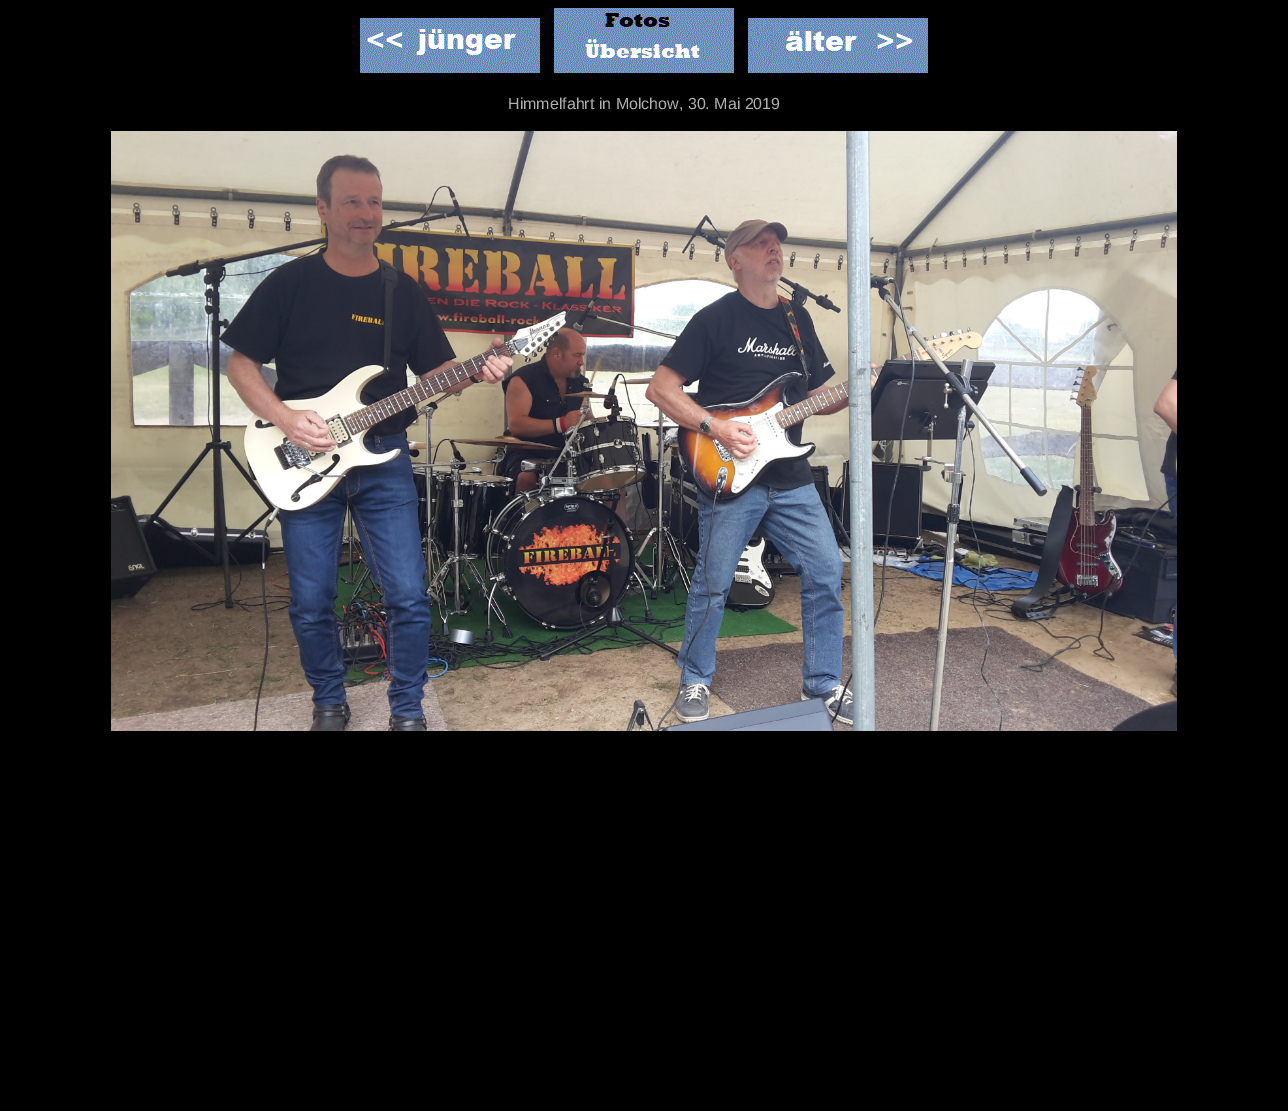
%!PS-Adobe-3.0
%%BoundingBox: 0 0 1288 1111
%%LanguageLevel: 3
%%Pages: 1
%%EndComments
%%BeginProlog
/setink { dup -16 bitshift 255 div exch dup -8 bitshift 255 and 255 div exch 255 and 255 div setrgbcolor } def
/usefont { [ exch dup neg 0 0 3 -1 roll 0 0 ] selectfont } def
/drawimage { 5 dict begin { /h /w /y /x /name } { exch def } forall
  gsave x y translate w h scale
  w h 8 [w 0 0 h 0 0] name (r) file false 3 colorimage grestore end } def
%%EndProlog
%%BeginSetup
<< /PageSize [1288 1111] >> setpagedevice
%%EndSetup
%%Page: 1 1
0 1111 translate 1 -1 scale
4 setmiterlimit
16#000000 setink
0 0 1288 1111 rectfill
(img1.raw) 360 18 180 55 drawimage
(img2.raw) 554 8 180 65 drawimage
(img3.raw) 748 18 180 55 drawimage
/LiberationSans-Regular 16 usefont
16#AFAFAF setink
508 109 moveto (Himmelfahrt in Molchow, 30. Mai 2019) show
(img4.raw) 111 131 1066 600 drawimage
showpage
%%EOF
